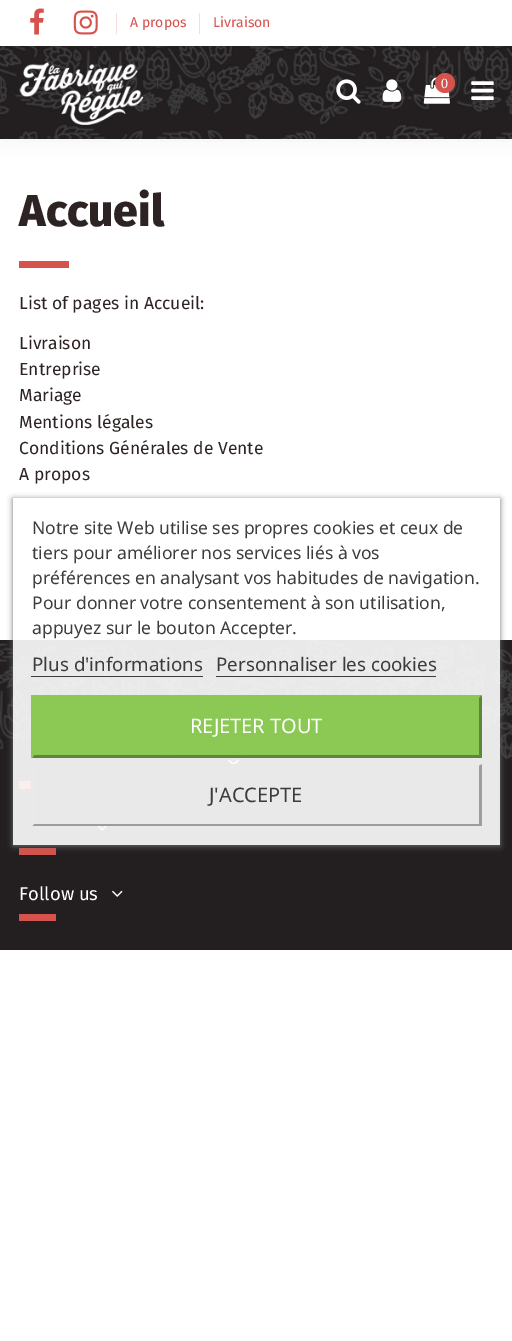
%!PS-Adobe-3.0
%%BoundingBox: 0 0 512 1341
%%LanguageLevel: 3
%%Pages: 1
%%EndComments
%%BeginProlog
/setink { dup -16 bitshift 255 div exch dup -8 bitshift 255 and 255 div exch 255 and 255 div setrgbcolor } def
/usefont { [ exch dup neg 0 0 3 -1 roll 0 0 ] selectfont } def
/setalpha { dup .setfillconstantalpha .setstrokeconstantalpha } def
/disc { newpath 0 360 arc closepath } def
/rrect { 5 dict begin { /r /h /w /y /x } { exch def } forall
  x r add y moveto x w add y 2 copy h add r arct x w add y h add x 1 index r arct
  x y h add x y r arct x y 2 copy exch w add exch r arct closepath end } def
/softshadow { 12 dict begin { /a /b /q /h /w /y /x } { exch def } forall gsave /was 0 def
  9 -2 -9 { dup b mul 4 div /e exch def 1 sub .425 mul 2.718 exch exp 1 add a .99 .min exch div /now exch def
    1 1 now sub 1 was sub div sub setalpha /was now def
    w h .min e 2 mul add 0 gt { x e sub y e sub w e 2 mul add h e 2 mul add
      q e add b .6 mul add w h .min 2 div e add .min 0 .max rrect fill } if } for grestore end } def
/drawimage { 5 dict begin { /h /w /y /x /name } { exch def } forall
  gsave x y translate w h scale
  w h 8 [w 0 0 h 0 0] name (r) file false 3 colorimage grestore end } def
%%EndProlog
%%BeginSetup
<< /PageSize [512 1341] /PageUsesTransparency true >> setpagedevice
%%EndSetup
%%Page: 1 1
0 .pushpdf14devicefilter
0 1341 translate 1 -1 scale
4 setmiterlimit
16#FFFFFF setink
0 0 512 1341 rectfill
16#000000 setink
0 0 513 139 0 12.5 0.05 softshadow
16#FFFFFF setink
0 0 512 46 rectfill
(img1.raw) 30 8 14 27 drawimage
(img2.raw) 73 10 25 25 drawimage
16#F7DCDB setink
116 13 1 21 rectfill
/FiraSans-Regular 14 usefont
16#D6524D setink
130 27 moveto (A propos) show
16#F7DCDB setink
199 13 1 21 rectfill
16#D6524D setink
213 27 moveto (Livraison) show
(img3.raw) 0 46 512 93 drawimage
(img4.raw) 19 62 125 63 drawimage
(img5.raw) 336 79 25 25 drawimage
(img6.raw) 382 79 20 23 drawimage
(img7.raw) 423 77 27 27 drawimage
445 83 10 disc fill
/LiberationSerif-Regular 14 usefont
16#FFFFFF setink
441 88 moveto (0) show
(img8.raw) 471 81 23 19 drawimage
/FiraSans-ExtraBold 44.5 usefont
16#2E2323 setink
19 226 moveto (Accueil) show
16#D6524D setink
19 261 50 7 rectfill
/FiraSans-Regular 17.5 usefont
16#2E2323 setink
[
    [(List of pages in Accueil:) 19 309]
    [(Livraison) 19 349]
    [(Entreprise) 19 375]
    [(Mariage) 19 401]
    [(Mentions légales) 19 428]
    [(Conditions Générales de Vente) 19 454]
    [(A propos) 19 480]
] { aload pop moveto show } forall
16#231F20 setink
0 764 512 186 rectfill
(img9.raw) 0 640 512 124 drawimage
(img10.raw) 228 759 11 5 drawimage
16#D6524D setink
19 781 12 8 rectfill
(img11.raw) 97 826 10 5 drawimage
19 848 37 7 rectfill
gsave
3 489 moveto 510 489 lineto 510 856 lineto 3 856 lineto closepath 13 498 moveto 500 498 lineto 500 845 lineto 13 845 lineto closepath eoclip newpath
16#707070 setink
13 499 487 347 0 3 1 softshadow
grestore
0.9 setalpha
16#FFFFFF setink
13 640 487 205 rectfill
/NotoSans-Regular 17.5 usefont
1 setalpha
16#3C3C3C setink
[
    [(Notre site Web utilise ses propres cookies et ceux de) 32 534]
    [(tiers pour améliorer nos services liés à vos) 32 559]
    [(préférences en analysant vos habitudes de navigation.) 32 584]
    [(Pour donner votre consentement à son utilisation,) 32 609]
    [(appuyez sur le bouton Accepter.) 32 634]
] { aload pop moveto show } forall
/NotoSans-Regular 18.75 usefont
32 671 moveto (Plus d'informations) show
31 676 172 1 rectfill
216 671 moveto (Personnaliser les cookies) show
216 676 220 1 rectfill
16#8BC954 setink
31 695 450 63 rectfill
32 695 moveto 482 695 lineto 479 698 lineto 34 698 lineto closepath fill
16#5D8638 setink
482 695 moveto 482 758 lineto 479 755 lineto 479 698 lineto closepath fill
482 758 moveto 32 758 lineto 34 755 lineto 479 755 lineto closepath fill
16#8BC954 setink
32 758 moveto 32 695 lineto 34 698 lineto 34 755 lineto closepath fill
/NotoSans-Regular 20 usefont
16#FFFFFF setink
190 733 moveto (REJETER TOUT) show
16#9C9C9C setink
482 764 moveto 482 826 lineto 479 824 lineto 479 766 lineto closepath fill
482 826 moveto 32 826 lineto 34 824 lineto 479 824 lineto closepath fill
16#EAEAEA setink
32 826 moveto 32 764 lineto 34 766 lineto 34 824 lineto closepath fill
16#3C3C3C setink
209 802 moveto (J'ACCEPTE) show
/FiraSans-Regular 18.5 usefont
16#FFFFFF setink
19 900 moveto (Follow us) show
(img12.raw) 112 890 11 7 drawimage
16#D6524D setink
19 914 37 7 rectfill
.poppdf14devicefilter showpage
%%EOF
